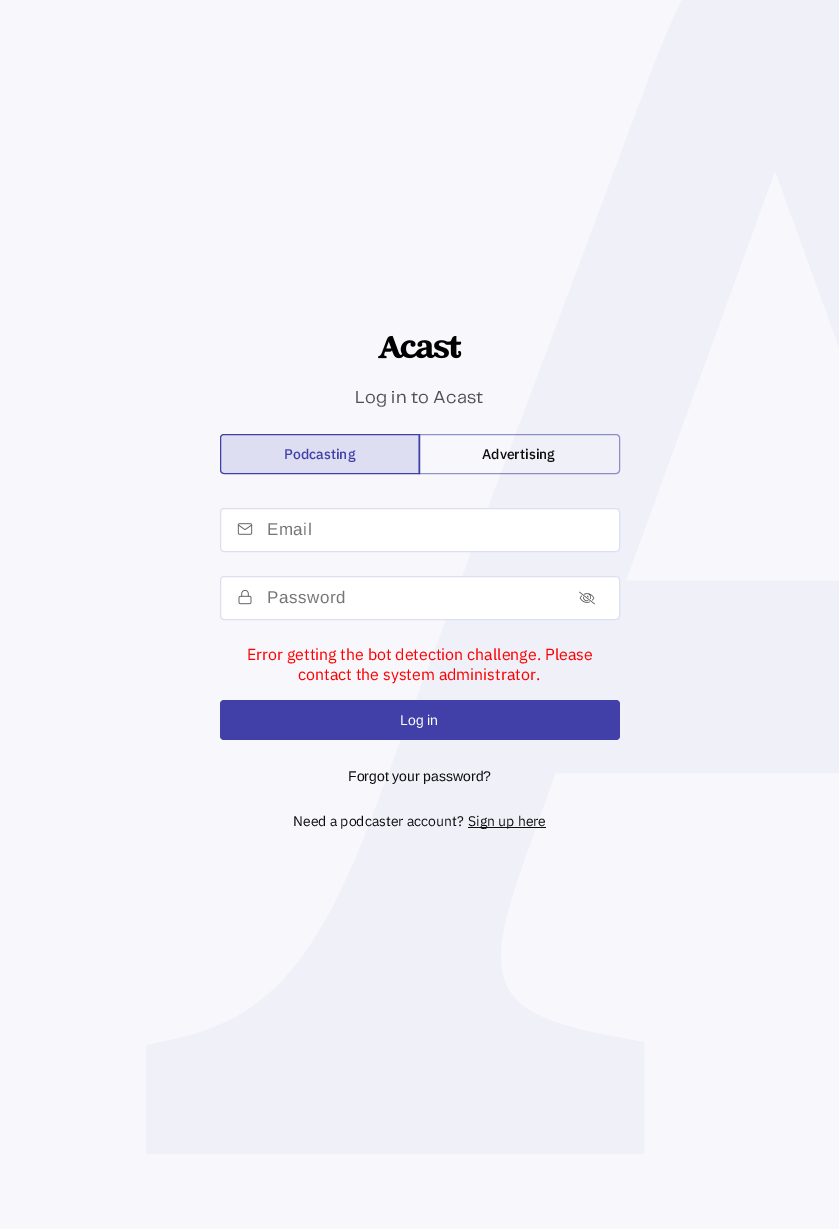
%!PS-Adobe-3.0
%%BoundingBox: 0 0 839 1229
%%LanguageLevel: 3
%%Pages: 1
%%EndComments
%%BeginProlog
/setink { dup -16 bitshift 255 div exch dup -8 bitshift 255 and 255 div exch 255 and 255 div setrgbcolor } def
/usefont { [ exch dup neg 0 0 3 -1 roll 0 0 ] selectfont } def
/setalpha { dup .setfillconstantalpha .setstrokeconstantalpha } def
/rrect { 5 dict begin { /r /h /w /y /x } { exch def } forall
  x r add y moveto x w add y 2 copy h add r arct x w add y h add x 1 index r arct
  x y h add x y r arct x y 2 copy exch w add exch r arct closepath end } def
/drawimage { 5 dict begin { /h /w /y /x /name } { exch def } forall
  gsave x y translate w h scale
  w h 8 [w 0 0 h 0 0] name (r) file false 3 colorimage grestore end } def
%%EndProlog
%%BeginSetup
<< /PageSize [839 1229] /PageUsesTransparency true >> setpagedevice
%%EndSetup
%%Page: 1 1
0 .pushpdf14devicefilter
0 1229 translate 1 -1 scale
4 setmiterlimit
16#F8F8FC setink
0 0 839 1229 rectfill
(img1.raw) 146 0 693 1154 drawimage
(img2.raw) 378 335 84 24 drawimage
/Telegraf-Regular 18 usefont
16#505050 setink
355 403 moveto 0.25 0 (Log in to Acast) ashow
16#DEDEF2 setink
224 434.5 moveto 419.5 434.5 lineto 419.5 473.5 lineto 224 473.5 lineto 222 473.5 220.5 472 220.5 470 curveto 220.5 438 lineto 220.5 436 222 434.5 224 434.5 curveto closepath gsave fill grestore
16#4040A8 setink
stroke
/IBMPlexSans-Medium 14 usefont
284 459 moveto (Podcasting) show
0.56 setalpha
418.5 434.5 moveto 616 434.5 lineto 618 434.5 619.5 436 619.5 438 curveto 619.5 470 lineto 619.5 472 618 473.5 616 473.5 curveto 418.5 473.5 lineto closepath stroke
1 setalpha
16#0D0D0D setink
482 459 moveto (Advertising) show
16#FFFFFF setink
220.5 508.5 399 43 3.5 rrect gsave fill grestore
16#DEDEF2 setink
stroke
(img3.raw) 237 523 16 12 drawimage
/LiberationSans-Regular 17 usefont
16#757575 setink
267 535 moveto 0.5 0 (Email) ashow
16#FFFFFF setink
220.5 576.5 399 43 3.5 rrect gsave fill grestore
16#DEDEF2 setink
stroke
(img4.raw) 238 589 14 16 drawimage
16#757575 setink
267 603 moveto 0.5 0 (Password) ashow
(img5.raw) 579 591 16 14 drawimage
/IBMPlexSans-Regular 16 usefont
16#FF0000 setink
247 660 moveto (Error getting the bot detection challenge. Please) show
298 680 moveto (contact the system administrator.) show
16#4040A8 setink
220 700 400 40 4 rrect fill
/LiberationSans-Regular 14 usefont
16#FFFFFF setink
400 725 moveto (Log in) show
16#0D0D0D setink
348 781 moveto (Forgot your password?) show
/IBMPlexSans-Regular 14 usefont
293 826 moveto (Need a podcaster account?) show
468 827 78 1 rectfill
468 826 moveto (Sign up here) show
.poppdf14devicefilter showpage
%%EOF
